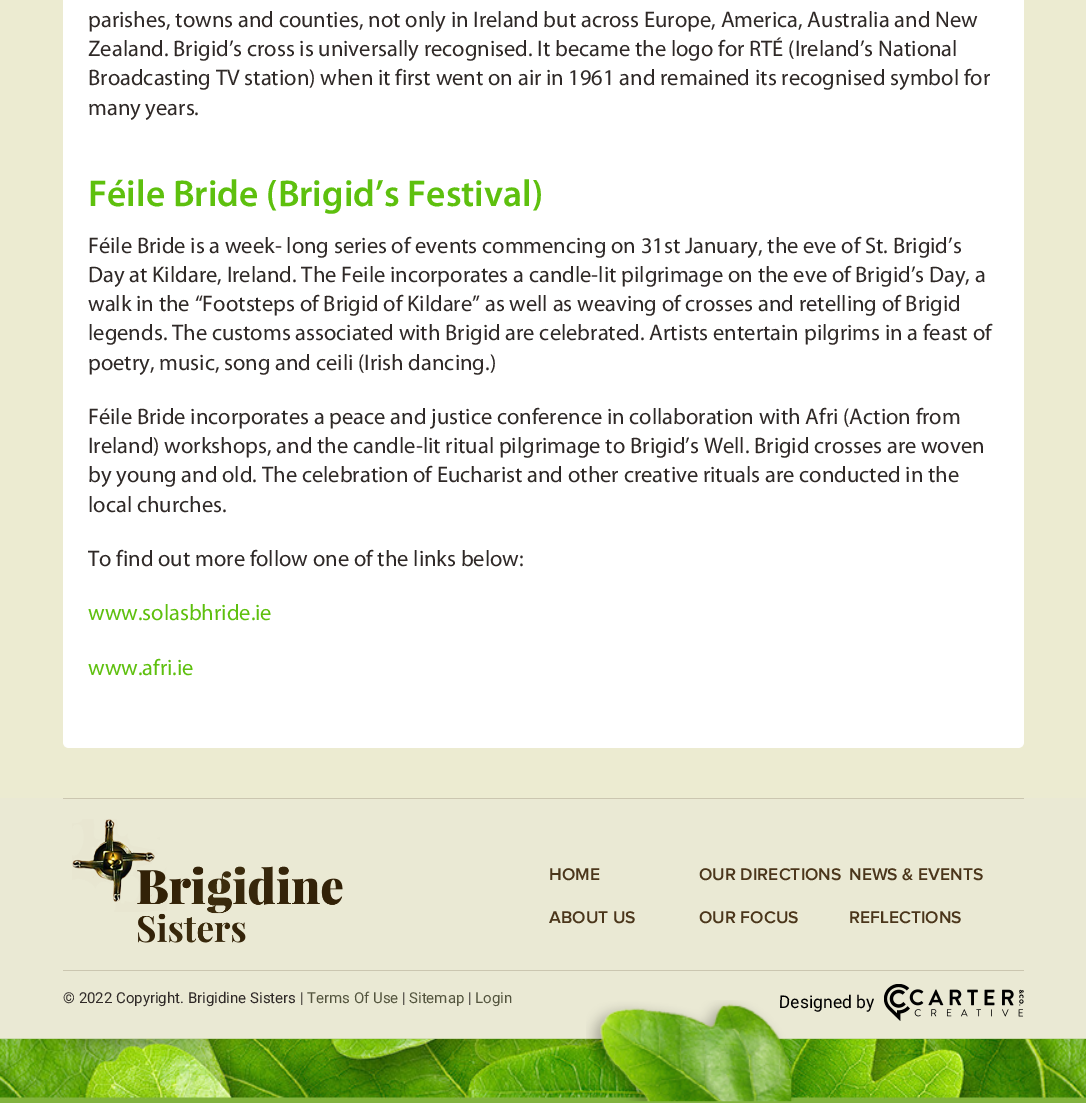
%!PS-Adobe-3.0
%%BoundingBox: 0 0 1086 1103
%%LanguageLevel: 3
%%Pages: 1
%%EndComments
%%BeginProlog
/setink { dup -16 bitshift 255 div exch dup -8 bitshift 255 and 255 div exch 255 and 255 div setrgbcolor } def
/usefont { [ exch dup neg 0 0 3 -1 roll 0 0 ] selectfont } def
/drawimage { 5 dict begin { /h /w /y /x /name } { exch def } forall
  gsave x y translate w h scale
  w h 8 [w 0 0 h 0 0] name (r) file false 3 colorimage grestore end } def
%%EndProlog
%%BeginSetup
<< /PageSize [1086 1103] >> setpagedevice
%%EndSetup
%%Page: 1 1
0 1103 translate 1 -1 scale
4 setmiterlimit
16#ECEBD1 setink
0 0 1086 1103 rectfill
16#FFFFFF setink
63 -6 moveto 1024 -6 lineto 1024 742 lineto 1024 745.5 1021.5 748 1018 748 curveto 69 748 lineto 65.5 748 63 745.5 63 742 curveto closepath fill
/Myriad-Regular 22.5 usefont
16#2F2927 setink
[
    [(parishes, towns and counties, not only in Ireland but across Europe, America, Australia and New) 88 27]
    [(Zealand. Brigid’s cross is universally recognised. It became the logo for RTÉ \(Ireland’s National) 88 56]
    [(Broadcasting TV station\) when it first went on air in 1961 and remained its recognised symbol for) 88 85]
    [(many years.) 88 115]
] { aload pop moveto show } forall
/Myriad-SemiBold 37.5 usefont
16#5EC00E setink
88 206 moveto (Féile Bride \(Brigid’s Festival\)) show
/Myriad-Regular 22.5 usefont
16#2F2927 setink
[
    [(Féile Bride is a week- long series of events commencing on 31st January, the eve of St. Brigid’s) 88 253]
    [(Day at Kildare, Ireland. The Feile incorporates a candle-lit pilgrimage on the eve of Brigid’s Day, a) 88 282]
    [(walk in the “Footsteps of Brigid of Kildare” as well as weaving of crosses and retelling of Brigid) 88 311]
    [(legends. The customs associated with Brigid are celebrated. Artists entertain pilgrims in a feast of) 88 340]
    [(poetry, music, song and ceili \(Irish dancing.\)) 88 370]
    [(Féile Bride incorporates a peace and justice conference in collaboration with Afri \(Action from) 88 424]
    [(Ireland\) workshops, and the candle-lit ritual pilgrimage to Brigid’s Well. Brigid crosses are woven) 88 453]
    [(by young and old. The celebration of Eucharist and other creative rituals are conducted in the) 88 482]
    [(local churches.) 88 512]
    [(To find out more follow one of the links below:) 88 566]
] { aload pop moveto show } forall
16#5EC00E setink
88 620 moveto (www.solasbhride.ie) show
88 675 moveto (www.afri.ie) show
[
    [0 798 1086 241 16#EAE9D4]
    [63 798 961 1 16#CBC6B0]
    [63 970 961 1 16#CBC6B0]
] { aload pop setink rectfill } forall
(img1.raw) 72 819 271 124 drawimage
/ProximaNova-SemiBold 17.5 usefont
16#4B361B setink
[
    [(HOME) 549 880]
    [(OUR DIRECTIONS) 699 880]
    [(NEWS & EVENTS) 849 880]
    [(ABOUT US) 549 923]
    [(OUR FOCUS) 699 923]
    [(REFLECTIONS) 849 923]
] { aload pop moveto show } forall
/Roboto-Regular 15 usefont
16#2F2927 setink
63 1003 moveto (© 2022 Copyright. Brigidine Sisters |) show
16#54553E setink
307 1003 moveto (Terms Of Use) show
16#2F2927 setink
402 1003 moveto (|) show
16#54553E setink
409 1003 moveto (Sitemap) show
16#2F2927 setink
468 1003 moveto (|) show
16#54553E setink
475 1003 moveto (Login) show
/Roboto-Regular 17.5 usefont
16#000000 setink
779 1008 moveto (Designed by) show
(img2.raw) 884 984 140 37 drawimage
(img3.raw) 0 1038 1086 63 drawimage
16#81B33D setink
0 1101 1086 2 rectfill
(img4.raw) 586 1000 208 102 drawimage
showpage
%%EOF
